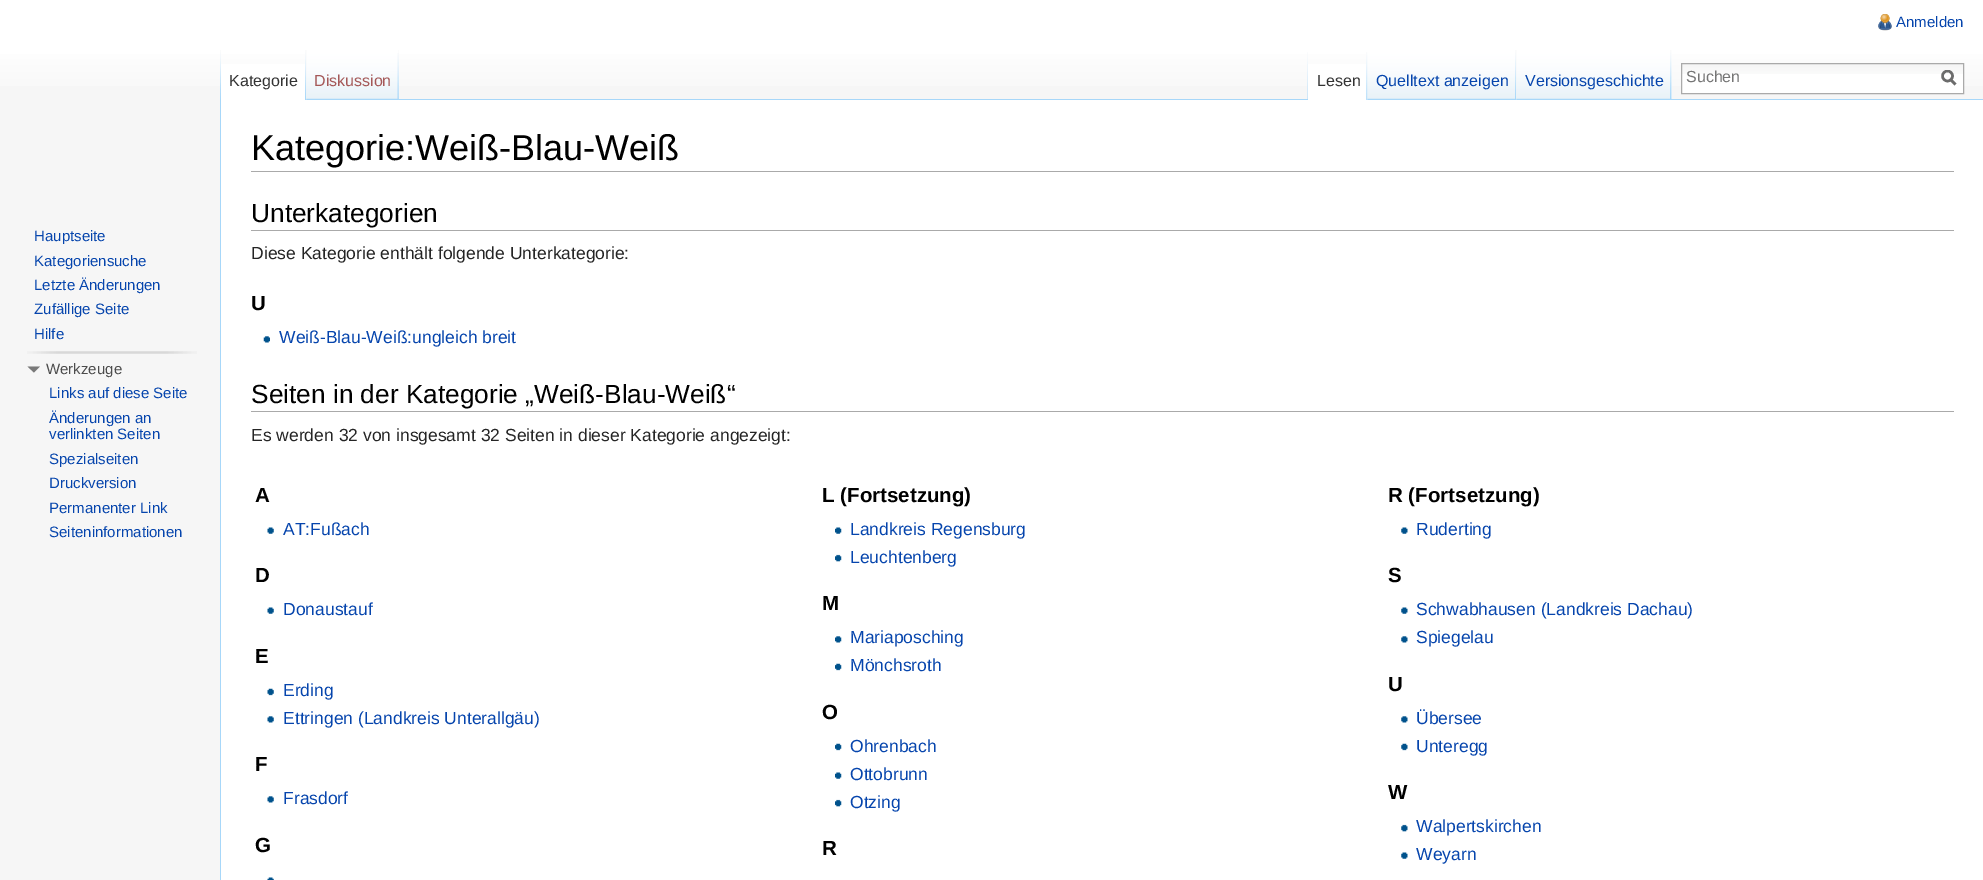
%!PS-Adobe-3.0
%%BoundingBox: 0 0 1983 880
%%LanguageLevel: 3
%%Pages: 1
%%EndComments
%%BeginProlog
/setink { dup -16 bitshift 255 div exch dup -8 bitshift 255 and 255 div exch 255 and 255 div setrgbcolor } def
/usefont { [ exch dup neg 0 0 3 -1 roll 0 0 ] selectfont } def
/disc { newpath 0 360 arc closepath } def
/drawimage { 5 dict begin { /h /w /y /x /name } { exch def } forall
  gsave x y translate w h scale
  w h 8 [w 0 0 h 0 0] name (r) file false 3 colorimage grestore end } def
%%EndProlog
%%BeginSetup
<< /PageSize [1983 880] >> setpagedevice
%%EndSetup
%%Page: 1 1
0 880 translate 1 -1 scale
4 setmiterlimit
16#F6F6F6 setink
0 0 1983 880 rectfill
gsave 0 0 moveto 1983 0 lineto 1983 86 lineto 0 86 lineto closepath clip newpath
<< /ShadingType 2 /ColorSpace /DeviceRGB /Coords [992 0 992 100] /Extend [true true] /Function << /FunctionType 3 /Domain [0 1] /Functions [<< /FunctionType 2 /Domain [0 1] /C0 [1 1 1] /C1 [1 1 1] /N 1 >> << /FunctionType 2 /Domain [0 1] /C0 [1 1 1] /C1 [0.965 0.965 0.965] /N 1 >>] /Bounds [0.5] /Encode [0 1 0 1] >> >> shfill grestore
(img1.raw) 1878 14 14 17 drawimage
/LiberationSans-Regular 15 usefont
16#0645AD setink
1896 27 moveto (Anmelden) show
(img2.raw) 220 50 1 49 drawimage
(img3.raw) 398 52 1 47 drawimage
16#FFFFFF setink
221 64 86 36 rectfill
(img4.raw) 305 50 2 50 drawimage
/LiberationSans-Regular 16 usefont
16#333333 setink
229 86 moveto (Kategorie) show
16#A7D7F9 setink
398 99 1585 1 rectfill
(img5.raw) 306 50 93 50 drawimage
(img6.raw) 397 53 2 47 drawimage
16#A55858 setink
314 86 moveto (Diskussion) show
(img7.raw) 1307 52 1 47 drawimage
(img8.raw) 1671 50 1 49 drawimage
16#FFFFFF setink
1308 64 60 36 rectfill
(img9.raw) 1366 52 2 48 drawimage
16#333333 setink
1317 86 moveto (Lesen) show
(img10.raw) 1367 50 150 50 drawimage
(img11.raw) 1515 50 2 49 drawimage
16#0645AD setink
1376 86 moveto (Quelltext anzeigen) show
(img12.raw) 1516 50 155 50 drawimage
(img13.raw) 1670 50 2 49 drawimage
1525 86 moveto (Versionsgeschichte) show
16#FFFFFF setink
1682 74 281 19 rectfill
(img14.raw) 1682 64 281 10 drawimage
16#AAAAAA setink
1681.5 63.5 282 30 rectstroke
16#757575 setink
1686 82 moveto (Suchen) show
16#6C6C6C setink
2.5 setlinewidth
1955.5 84.5 moveto 1950.5 79.5 lineto stroke
gsave
1941 70 15 16 rectclip
1947.5 76 5 disc stroke
grestore
/LiberationSans-Regular 15 usefont
16#0645AD setink
[
    [(Hauptseite) 34 241]
    [(Kategoriensuche) 34 266]
    [(Letzte Änderungen) 34 290]
    [(Zufällige Seite) 34 314]
    [(Hilfe) 34 339]
] { aload pop moveto show } forall
(img15.raw) 27 351 170 3 drawimage
16#797979 setink
40 366.5 moveto 34 372.5 lineto 27.5 366.5 lineto closepath fill
16#4D4D4D setink
46 374 moveto (Werkzeuge) show
16#0645AD setink
[
    [(Links auf diese Seite) 49 398]
    [(Änderungen an) 49 423]
    [(verlinkten Seiten) 49 439]
    [(Spezialseiten) 49 464]
    [(Druckversion) 49 488]
    [(Permanenter Link) 49 513]
    [(Seiteninformationen) 49 537]
] { aload pop moveto show } forall
[
    [221 100 1762 780 16#FFFFFF]
    [220 99 1 781 16#A7D7F9]
    [251 171 1703 1 16#AAAAAA]
] { aload pop setink rectfill } forall
/LiberationSans-Regular 36 usefont
16#000000 setink
251 160 moveto (Kategorie:Weiß-Blau-Weiß) show
16#AAAAAA setink
251 230 1703 1 rectfill
/LiberationSans-Regular 26.25 usefont
16#000000 setink
251 222 moveto (Unterkategorien) show
/LiberationSans-Regular 17.5 usefont
16#252525 setink
251 259 moveto (Diese Kategorie enthält folgende Unterkategorie:) show
/LiberationSans-Bold 20.5 usefont
16#000000 setink
251 310 moveto (U) show
(img16.raw) 263 336 7 7 drawimage
/LiberationSans-Regular 17.5 usefont
16#0645AD setink
279 343 moveto (Weiß-Blau-Weiß:ungleich breit) show
16#AAAAAA setink
251 411 1703 1 rectfill
/LiberationSans-Regular 26.25 usefont
16#000000 setink
251 403 moveto (Seiten in der Kategorie „Weiß-Blau-Weiß“) show
/LiberationSans-Regular 17.5 usefont
16#252525 setink
251 441 moveto (Es werden 32 von insgesamt 32 Seiten in dieser Kategorie angezeigt:) show
/LiberationSans-Bold 20.5 usefont
16#000000 setink
255 502 moveto (A) show
(img17.raw) 267 527 7 7 drawimage
/LiberationSans-Regular 17.5 usefont
16#0645AD setink
283 535 moveto (AT:Fußach) show
/LiberationSans-Bold 20.5 usefont
16#000000 setink
255 582 moveto (D) show
(img17.raw) 267 607 7 7 drawimage
/LiberationSans-Regular 17.5 usefont
16#0645AD setink
283 615 moveto (Donaustauf) show
/LiberationSans-Bold 20.5 usefont
16#000000 setink
255 663 moveto (E) show
(img18.raw) 267 688 7 8 drawimage
/LiberationSans-Regular 17.5 usefont
16#0645AD setink
283 696 moveto (Erding) show
(img19.raw) 267 716 7 7 drawimage
283 724 moveto (Ettringen \(Landkreis Unterallgäu\)) show
/LiberationSans-Bold 20.5 usefont
16#000000 setink
255 771 moveto (F) show
(img19.raw) 267 796 7 7 drawimage
/LiberationSans-Regular 17.5 usefont
16#0645AD setink
283 804 moveto (Frasdorf) show
/LiberationSans-Bold 20.5 usefont
16#000000 setink
255 852 moveto (G) show
(img20.raw) 267 877 7 3 drawimage
822 502 moveto (L \(Fortsetzung\)) show
(img21.raw) 835 527 7 7 drawimage
/LiberationSans-Regular 17.5 usefont
16#0645AD setink
850 535 moveto (Landkreis Regensburg) show
(img22.raw) 835 554 7 8 drawimage
850 563 moveto (Leuchtenberg) show
/LiberationSans-Bold 20.5 usefont
16#000000 setink
822 610 moveto (M) show
(img23.raw) 835 636 7 7 drawimage
/LiberationSans-Regular 17.5 usefont
16#0645AD setink
850 643 moveto (Mariaposching) show
(img24.raw) 835 663 7 8 drawimage
850 671 moveto (Mönchsroth) show
/LiberationSans-Bold 20.5 usefont
16#000000 setink
822 719 moveto (O) show
(img24.raw) 835 743 7 8 drawimage
/LiberationSans-Regular 17.5 usefont
16#0645AD setink
850 752 moveto (Ohrenbach) show
(img21.raw) 835 772 7 7 drawimage
850 780 moveto (Ottobrunn) show
(img22.raw) 835 799 7 8 drawimage
850 808 moveto (Otzing) show
/LiberationSans-Bold 20.5 usefont
16#000000 setink
822 855 moveto (R) show
1388 502 moveto (R \(Fortsetzung\)) show
(img25.raw) 1401 527 7 7 drawimage
/LiberationSans-Regular 17.5 usefont
16#0645AD setink
1416 535 moveto (Ruderting) show
/LiberationSans-Bold 20.5 usefont
16#000000 setink
1388 582 moveto (S) show
(img25.raw) 1401 607 7 7 drawimage
/LiberationSans-Regular 17.5 usefont
16#0645AD setink
1416 615 moveto (Schwabhausen \(Landkreis Dachau\)) show
(img26.raw) 1401 636 7 7 drawimage
1416 643 moveto (Spiegelau) show
/LiberationSans-Bold 20.5 usefont
16#000000 setink
1388 691 moveto (U) show
(img26.raw) 1401 716 7 7 drawimage
/LiberationSans-Regular 17.5 usefont
16#0645AD setink
1416 724 moveto (Übersee) show
(img27.raw) 1401 743 7 8 drawimage
1416 752 moveto (Unteregg) show
/LiberationSans-Bold 20.5 usefont
16#000000 setink
1388 799 moveto (W) show
(img28.raw) 1401 824 7 8 drawimage
/LiberationSans-Regular 17.5 usefont
16#0645AD setink
1416 832 moveto (Walpertskirchen) show
(img25.raw) 1401 852 7 7 drawimage
1416 860 moveto (Weyarn) show
showpage
%%EOF
